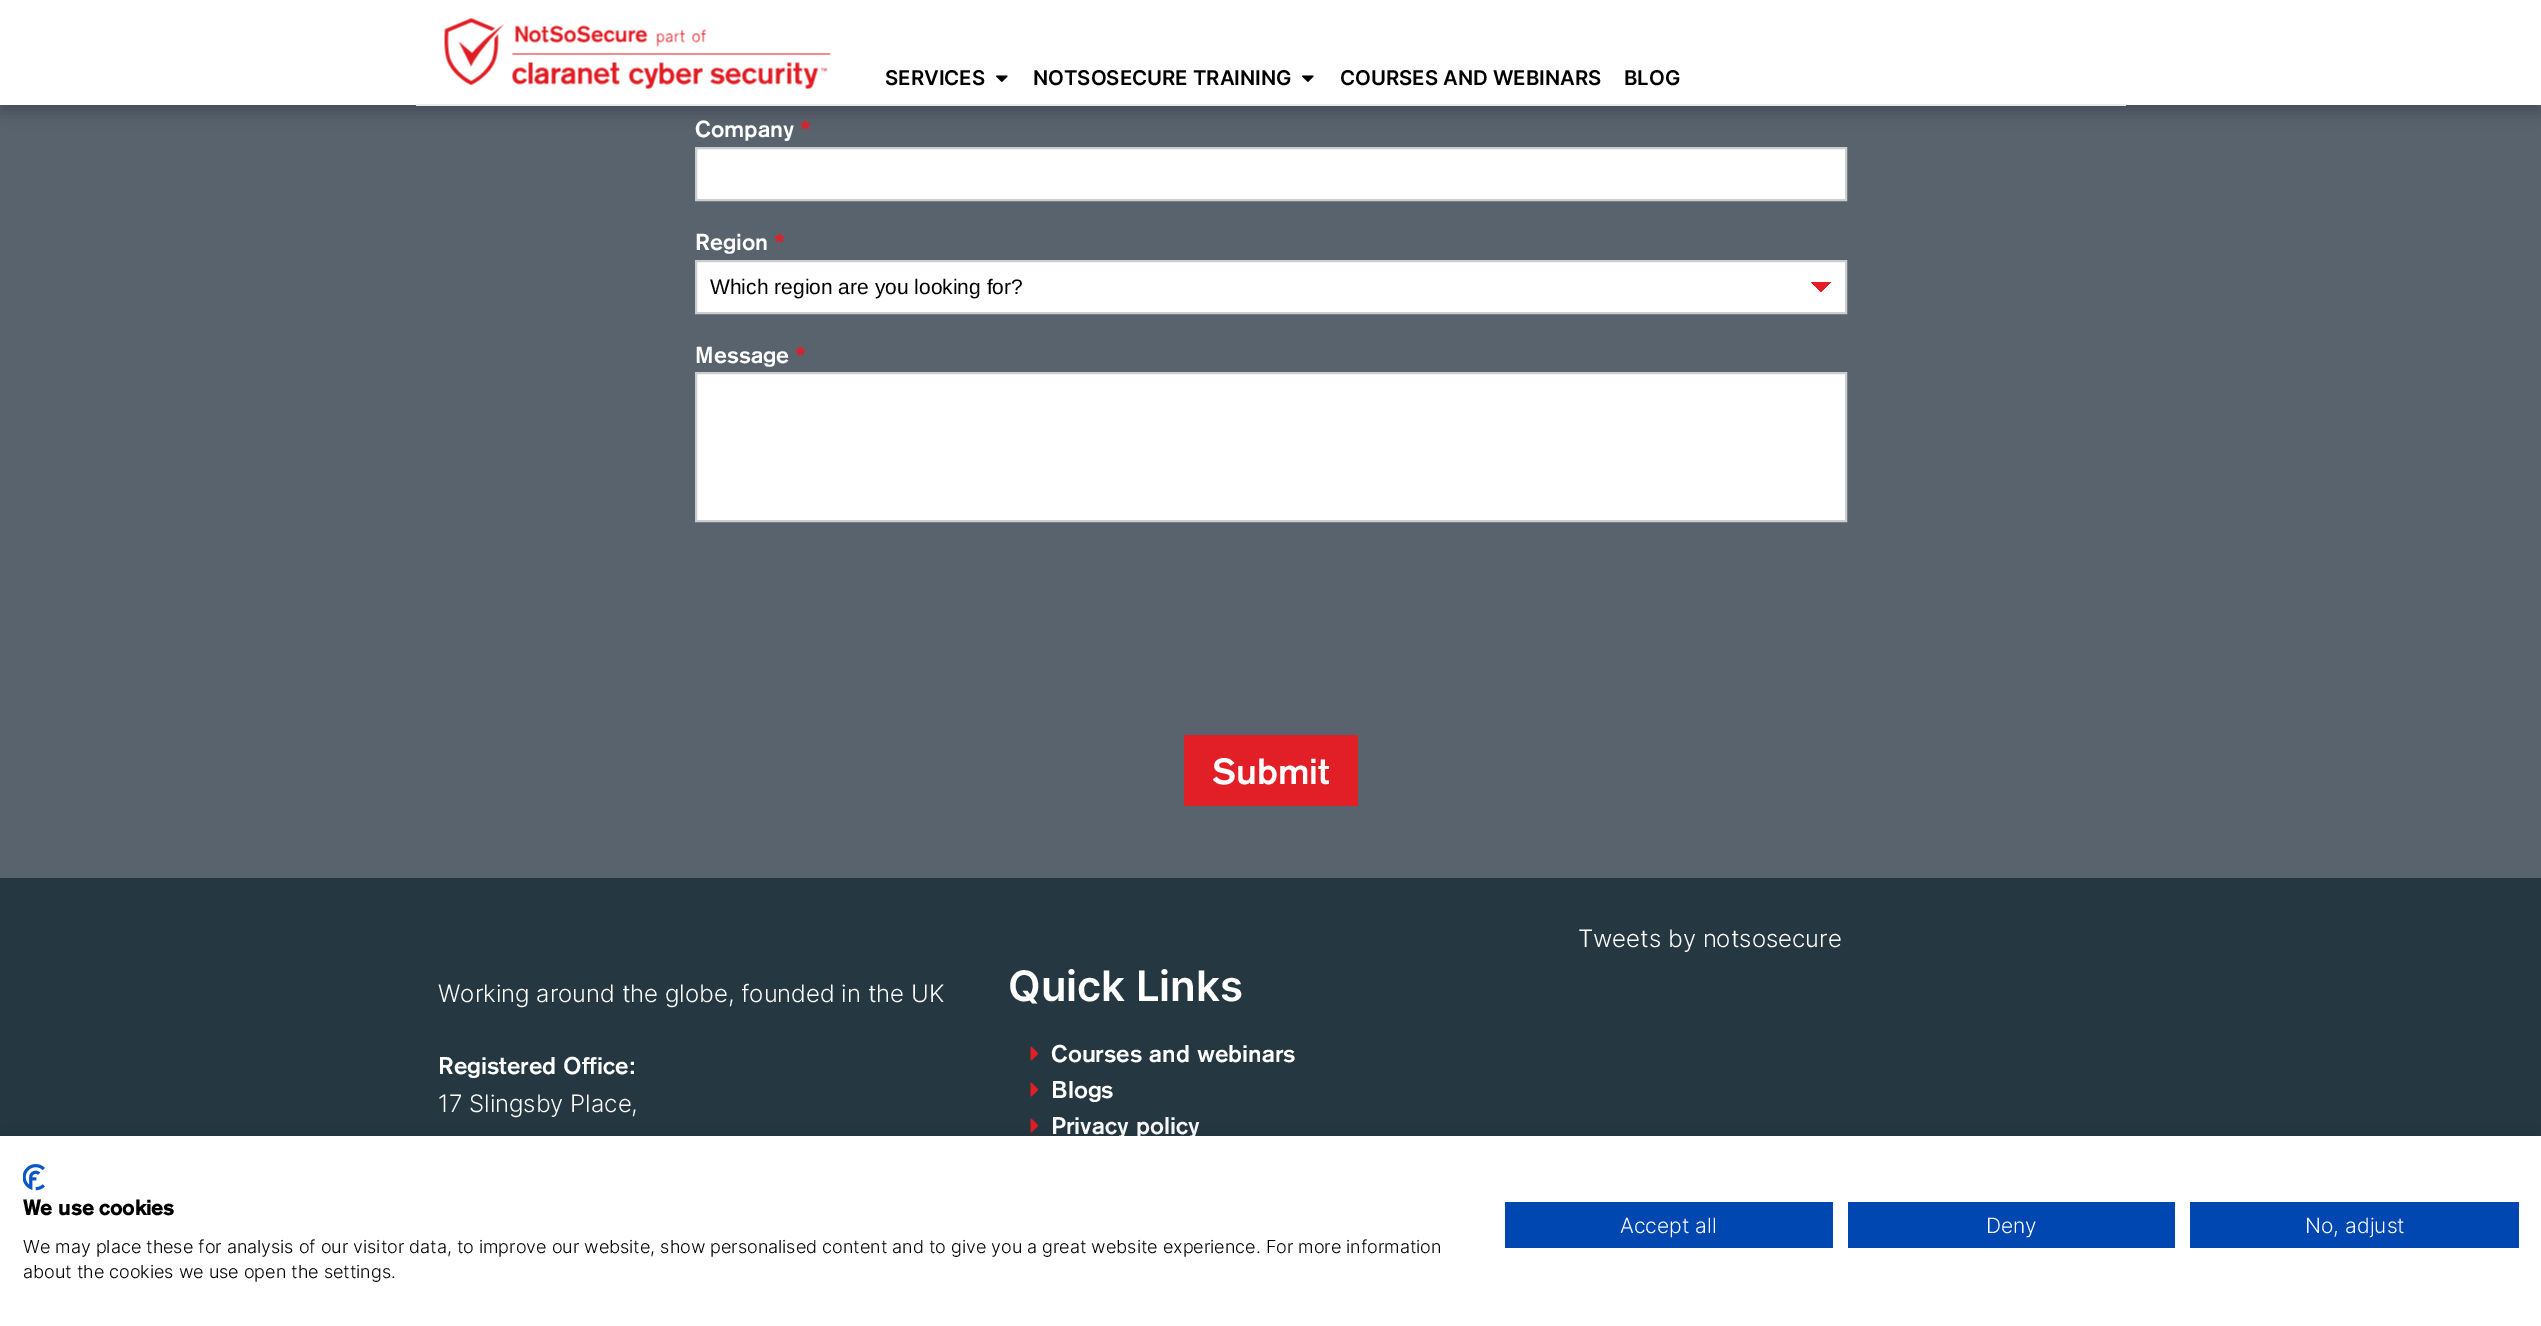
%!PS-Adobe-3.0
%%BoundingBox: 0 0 2541 1326
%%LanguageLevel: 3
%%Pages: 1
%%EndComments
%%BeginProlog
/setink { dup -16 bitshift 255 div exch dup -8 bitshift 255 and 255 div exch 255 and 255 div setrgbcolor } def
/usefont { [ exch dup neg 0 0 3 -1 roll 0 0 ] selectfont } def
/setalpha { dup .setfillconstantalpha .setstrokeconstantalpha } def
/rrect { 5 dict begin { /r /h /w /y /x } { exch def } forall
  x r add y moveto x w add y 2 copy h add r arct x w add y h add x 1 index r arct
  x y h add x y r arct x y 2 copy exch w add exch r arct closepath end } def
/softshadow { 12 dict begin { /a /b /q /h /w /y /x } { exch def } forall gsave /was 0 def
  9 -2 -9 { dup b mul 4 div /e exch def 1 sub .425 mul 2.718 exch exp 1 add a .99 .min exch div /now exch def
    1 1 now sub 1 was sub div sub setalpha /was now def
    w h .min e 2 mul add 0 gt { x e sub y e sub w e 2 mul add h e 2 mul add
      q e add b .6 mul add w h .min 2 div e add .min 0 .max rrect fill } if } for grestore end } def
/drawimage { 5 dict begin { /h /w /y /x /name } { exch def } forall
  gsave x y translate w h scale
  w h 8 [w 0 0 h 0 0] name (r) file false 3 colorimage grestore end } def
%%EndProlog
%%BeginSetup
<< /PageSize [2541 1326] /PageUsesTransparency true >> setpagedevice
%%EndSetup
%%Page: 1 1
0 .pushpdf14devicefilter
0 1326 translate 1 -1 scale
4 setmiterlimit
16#59636E setink
0 0 2541 1326 rectfill
16#000000 setink
0 8 2541 105 0 7.5 0.2 softshadow
16#FFFFFF setink
0 0 2541 105 rectfill
16#E7ECEF setink
416 104 1710 2 rectfill
(img1.raw) 444 17 387 72 drawimage
/Inter-SemiBold 20.4 usefont
16#000000 setink
885 85 moveto (SERVICES) show
(img2.raw) 996 75 12 7 drawimage
1033 85 moveto (NOTSOSECURE TRAINING) show
(img2.raw) 1302 75 12 7 drawimage
1340 85 moveto (COURSES AND WEBINARS) show
1624 85 moveto (BLOG) show
/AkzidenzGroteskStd-Medium 23 usefont
16#FFFFFF setink
695 137 moveto (Company) show
/AkzidenzGroteskStd-Medium 29 usefont
16#E21E26 setink
800 141 moveto (*) show
16#FFFFFF setink
696 148 moveto 1846 148 lineto 1846 200 lineto 696 200 lineto closepath gsave fill grestore
16#CDCDCD setink
2 setlinewidth
stroke
/AkzidenzGroteskStd-Medium 23 usefont
16#FFFFFF setink
695 250 moveto (Region) show
/AkzidenzGroteskStd-Medium 29 usefont
16#E21E26 setink
774 254 moveto (*) show
16#FFFFFF setink
697 262 1148 50 rectfill
gsave 1821 282 moveto 1832 282 lineto 1832 292 lineto 1821 292 lineto closepath clip newpath
<< /ShadingType 2 /ColorSpace /DeviceRGB /Coords [1821 282 1832 293] /Extend [true true] /Function << /FunctionType 3 /Domain [0 1] /Functions [<< /FunctionType 2 /Domain [0 1] /C0 [0.886 0.118 0.149] /C1 [0.886 0.118 0.149] /N 1 >> << /FunctionType 2 /Domain [0 1] /C0 [1 1 1] /C1 [1 1 1] /N 1 >>] /Bounds [0.5] /Encode [0 1 0 1] >> >> shfill grestore
gsave 1811 282 moveto 1821 282 lineto 1821 292 lineto 1811 292 lineto closepath clip newpath
<< /ShadingType 2 /ColorSpace /DeviceRGB /Coords [1811 293 1821 282] /Extend [true true] /Function << /FunctionType 3 /Domain [0 1] /Functions [<< /FunctionType 2 /Domain [0 1] /C0 [1 1 1] /C1 [1 1 1] /N 1 >> << /FunctionType 2 /Domain [0 1] /C0 [0.886 0.118 0.149] /C1 [0.886 0.118 0.149] /N 1 >>] /Bounds [0.5] /Encode [0 1 0 1] >> >> shfill grestore
16#CDCDCD setink
696 261 1150 52 rectstroke
/LiberationSans-Regular 21 usefont
16#000000 setink
710 294 moveto (Which region are you looking for?) show
/AkzidenzGroteskStd-Medium 23 usefont
16#FFFFFF setink
695 363 moveto (Message) show
/AkzidenzGroteskStd-Medium 29 usefont
16#E21E26 setink
795 367 moveto (*) show
16#FFFFFF setink
696 373 moveto 1846 373 lineto 1846 521 lineto 696 521 lineto closepath gsave fill grestore
16#CDCDCD setink
stroke
16#E21E26 setink
1184 735 174 71 rectfill
/AkzidenzGroteskStd-Medium 36 usefont
16#FFFFFF setink
1212 784 moveto (Submit) show
16#253741 setink
0 878 2541 258 rectfill
/Inter-Light 24 usefont
16#FFFFFF setink
1578 947 moveto (Tweets by notsosecure) show
438 1002 moveto (Working around the globe, founded in the UK) show
/AkzidenzGroteskStd-Medium 24 usefont
438 1074 moveto (Registered Office:) show
/Inter-Light 24 usefont
438 1112 moveto (17 Slingsby Place,) show
/Inter-SemiBold 42 usefont
1008 1001 moveto (Quick Links) show
(img3.raw) 1030 1046 9 15 drawimage
/AkzidenzGroteskStd-Medium 24 usefont
1051 1062 moveto (Courses and webinars) show
(img3.raw) 1030 1082 9 15 drawimage
1051 1098 moveto (Blogs) show
(img3.raw) 1030 1118 9 15 drawimage
1051 1134 moveto (Privacy policy) show
16#000000 setink
0 1136 2541 190 0 18 0.1 softshadow
16#FFFFFF setink
0 1136 2541 190 rectfill
(img4.raw) 23 1164 22 27 drawimage
/AkzidenzGroteskStd-Bold 21 usefont
16#000000 setink
23 1215 moveto (We use cookies) show
/Inter-Light 18 usefont
23 1253 moveto (We may place these for analysis of our visitor data, to improve our website, show personalised content and to give you a great website experience. For more information) show
23 1278 moveto (about the cookies we use open the settings.) show
16#0047B2 setink
1505 1202 328 46 rectfill
/Inter-Light 21 usefont
16#FFFFFF setink
1620 1233 moveto (Accept all) show
16#0047B2 setink
1848 1202 327 46 rectfill
16#FFFFFF setink
1986 1233 moveto (Deny) show
16#0047B2 setink
2190 1202 329 46 rectfill
16#FFFFFF setink
2305 1233 moveto (No, adjust) show
.poppdf14devicefilter showpage
%%EOF
